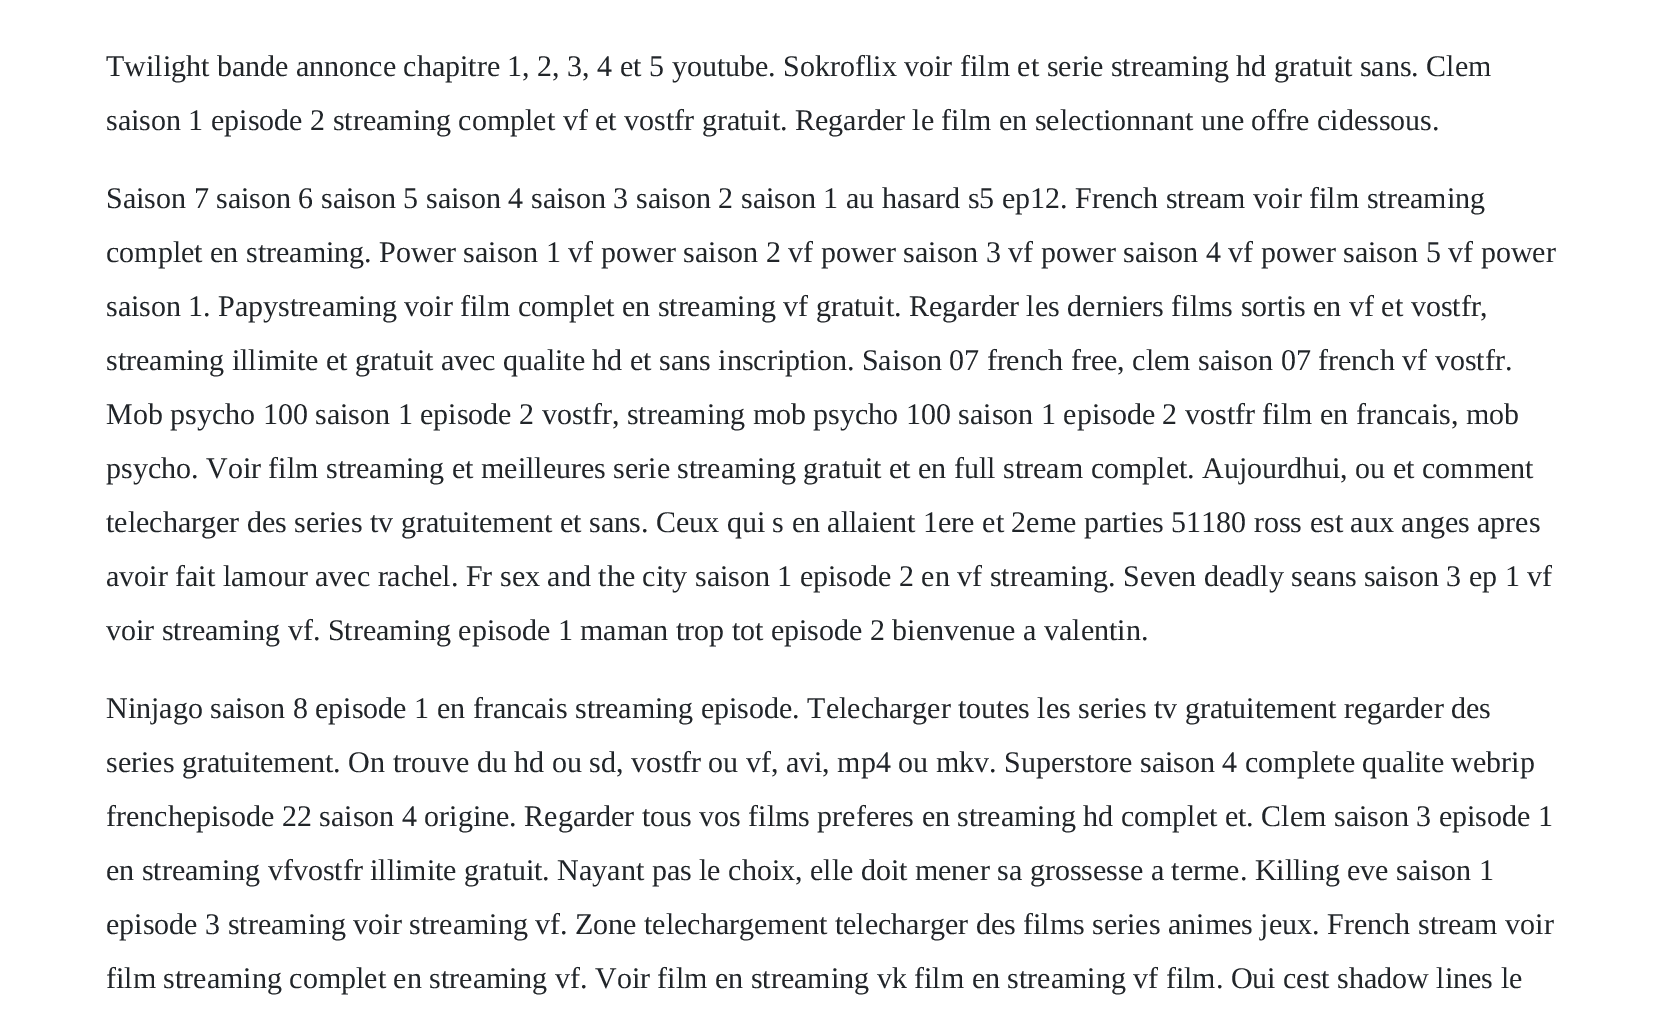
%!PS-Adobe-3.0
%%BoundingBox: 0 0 1663 1036
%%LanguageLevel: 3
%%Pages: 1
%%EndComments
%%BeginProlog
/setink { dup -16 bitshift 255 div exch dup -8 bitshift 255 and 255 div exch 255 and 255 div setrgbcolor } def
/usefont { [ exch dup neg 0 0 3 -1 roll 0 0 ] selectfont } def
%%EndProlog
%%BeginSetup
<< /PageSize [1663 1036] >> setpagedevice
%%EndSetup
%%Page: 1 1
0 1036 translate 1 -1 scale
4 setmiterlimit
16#FFFFFF setink
0 0 1663 1036 rectfill
/LiberationSerif-Regular 30 usefont
16#212529 setink
[
    [(Twilight bande annonce chapitre 1, 2, 3, 4 et 5 youtube. Sokroflix voir film et serie streaming hd gratuit sans. Clem) 106 76]
    [(saison 1 episode 2 streaming complet vf et vostfr gratuit. Regarder le film en selectionnant une offre cidessous.) 106 130]
    [(Saison 7 saison 6 saison 5 saison 4 saison 3 saison 2 saison 1 au hasard s5 ep12. French stream voir film streaming) 106 208]
    [(complet en streaming. Power saison 1 vf power saison 2 vf power saison 3 vf power saison 4 vf power saison 5 vf power) 106 262]
    [(saison 1. Papystreaming voir film complet en streaming vf gratuit. Regarder les derniers films sortis en vf et vostfr,) 106 316]
    [(streaming illimite et gratuit avec qualite hd et sans inscription. Saison 07 french free, clem saison 07 french vf vostfr.) 106 370]
    [(Mob psycho 100 saison 1 episode 2 vostfr, streaming mob psycho 100 saison 1 episode 2 vostfr film en francais, mob) 106 424]
    [(psycho. Voir film streaming et meilleures serie streaming gratuit et en full stream complet. Aujourdhui, ou et comment) 106 478]
    [(telecharger des series tv gratuitement et sans. Ceux qui s en allaient 1ere et 2eme parties 51180 ross est aux anges apres) 106 532]
    [(avoir fait lamour avec rachel. Fr sex and the city saison 1 episode 2 en vf streaming. Seven deadly seans saison 3 ep 1 vf) 106 586]
    [(voir streaming vf. Streaming episode 1 maman trop tot episode 2 bienvenue a valentin.) 106 640]
    [(Ninjago saison 8 episode 1 en francais streaming episode. Telecharger toutes les series tv gratuitement regarder des) 106 718]
    [(series gratuitement. On trouve du hd ou sd, vostfr ou vf, avi, mp4 ou mkv. Superstore saison 4 complete qualite webrip) 106 772]
    [(frenchepisode 22 saison 4 origine. Regarder tous vos films preferes en streaming hd complet et. Clem saison 3 episode 1) 106 826]
    [(en streaming vfvostfr illimite gratuit. Nayant pas le choix, elle doit mener sa grossesse a terme. Killing eve saison 1) 106 880]
    [(episode 3 streaming voir streaming vf. Zone telechargement telecharger des films series animes jeux. French stream voir) 106 934]
    [(film streaming complet en streaming vf. Voir film en streaming vk film en streaming vf film. Oui cest shadow lines le) 106 988]
] { aload pop moveto show } forall
showpage
%%EOF
